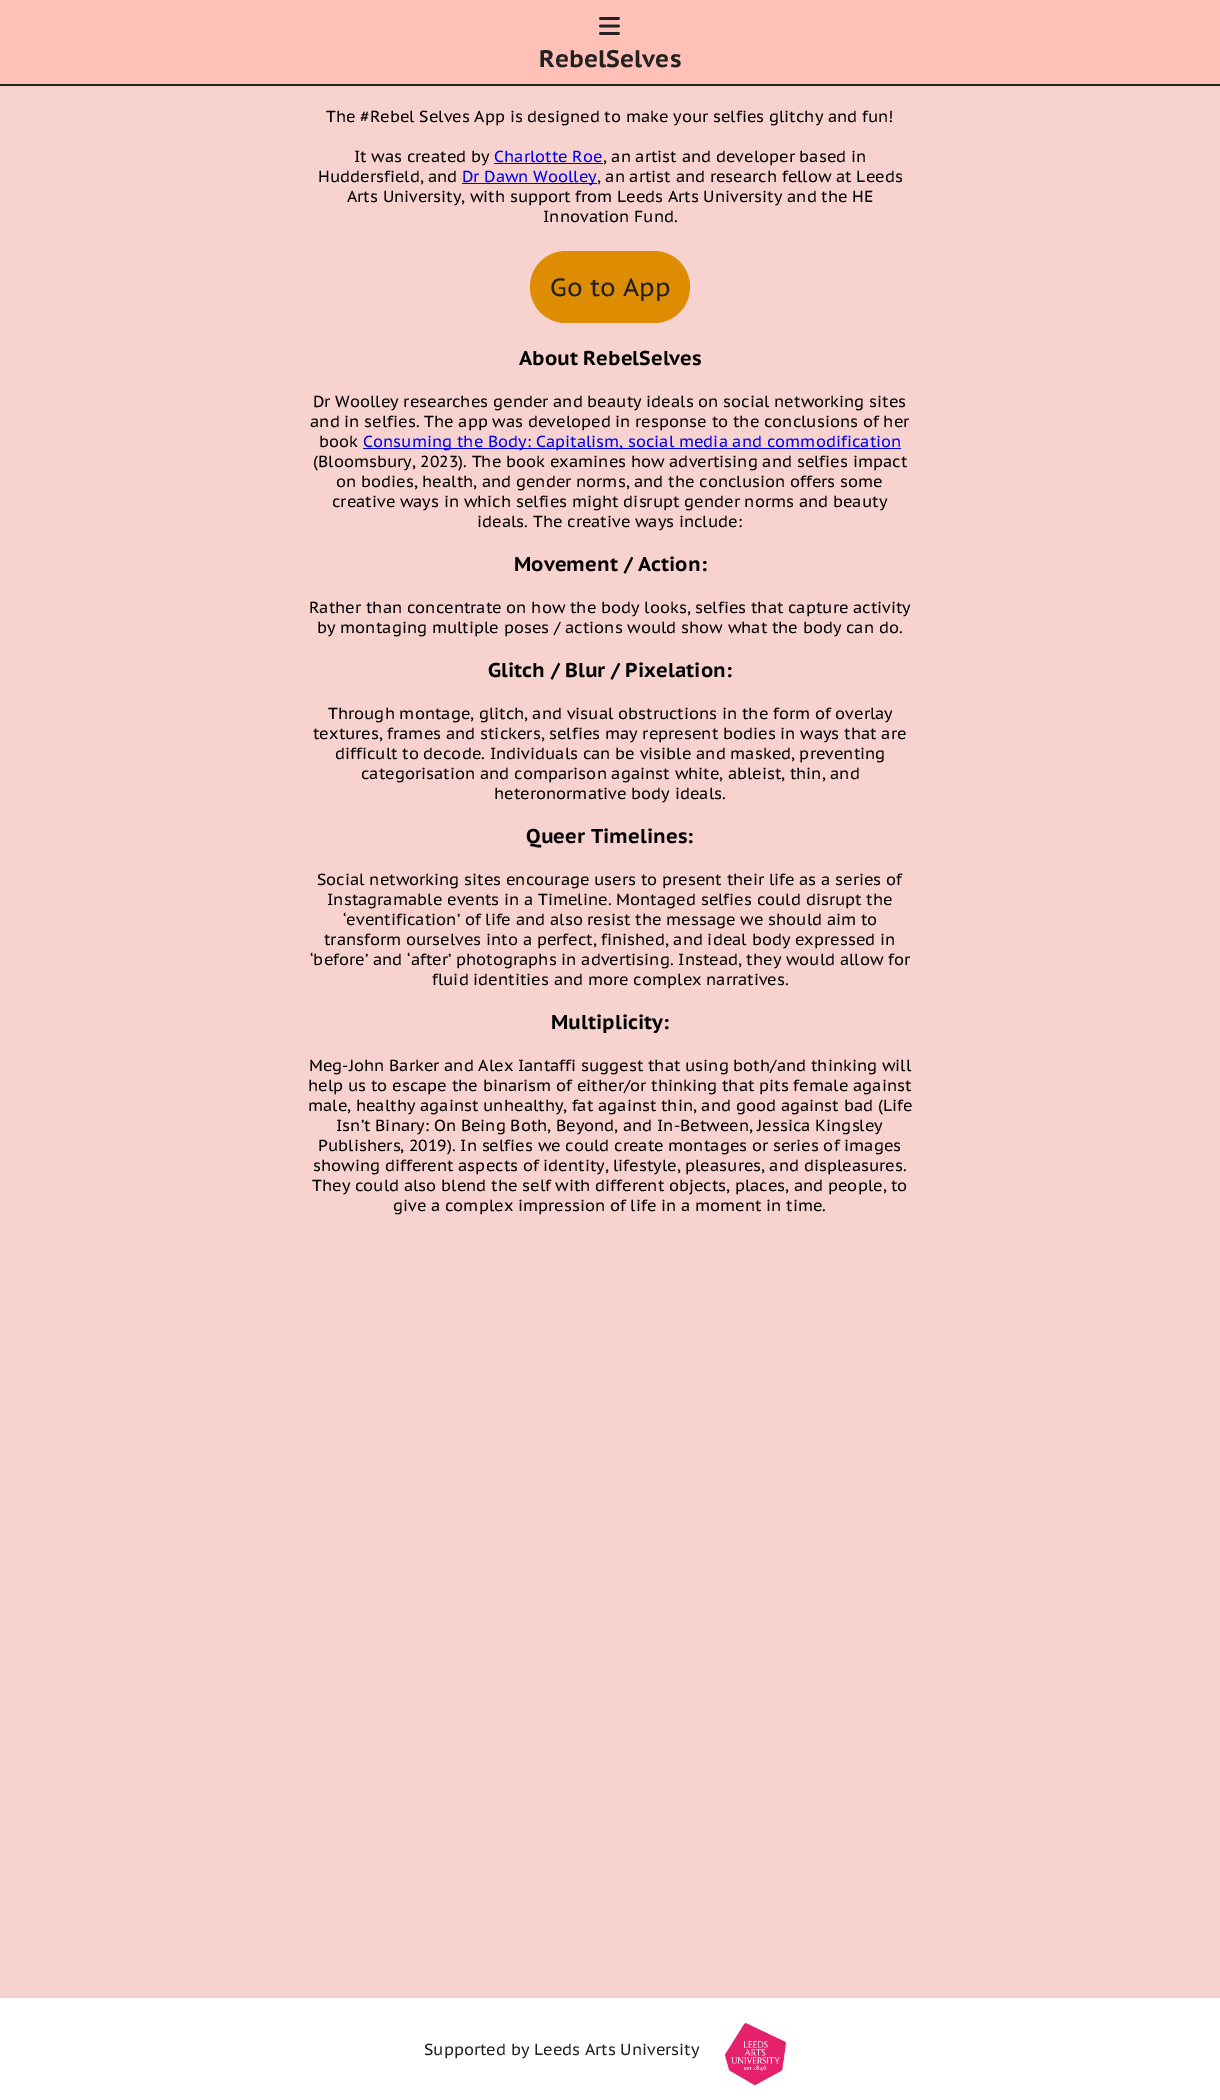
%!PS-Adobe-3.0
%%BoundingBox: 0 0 1220 2100
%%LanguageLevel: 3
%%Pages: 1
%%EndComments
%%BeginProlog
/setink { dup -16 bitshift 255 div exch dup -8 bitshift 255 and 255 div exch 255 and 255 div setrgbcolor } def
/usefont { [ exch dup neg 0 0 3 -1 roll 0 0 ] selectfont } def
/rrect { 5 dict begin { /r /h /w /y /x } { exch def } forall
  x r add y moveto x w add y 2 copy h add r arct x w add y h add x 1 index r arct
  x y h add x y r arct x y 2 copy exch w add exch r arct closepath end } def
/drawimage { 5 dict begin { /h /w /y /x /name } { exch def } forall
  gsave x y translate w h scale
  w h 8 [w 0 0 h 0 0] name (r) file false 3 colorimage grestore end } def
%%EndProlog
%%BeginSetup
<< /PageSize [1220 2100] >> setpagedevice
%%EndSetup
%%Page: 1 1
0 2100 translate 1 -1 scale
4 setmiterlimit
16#F8D2CF setink
0 0 1220 2100 rectfill
16#FFC0B8 setink
0 0 1220 84 rectfill
16#212121 setink
0 84 1220 2 rectfill
(img1.raw) 599 17 21 18 drawimage
/PTSansCaption-Bold 24 usefont
539 67 moveto (RebelSelves) show
/PTSansCaption-Regular 16 usefont
16#000000 setink
326 122 moveto (The #Rebel Selves App is designed to make your selfies glitchy and fun!) show
354 162 moveto (It was created by) show
16#0000EE setink
494 162 moveto (Charlotte Roe) show
494 163 109 1 rectfill
16#000000 setink
603 162 moveto (, an artist and developer based in) show
318 182 moveto (Huddersfield, and) show
16#0000EE setink
462 183 135 1 rectfill
462 182 moveto (Dr Dawn Woolley) show
16#000000 setink
[
    [(, an artist and research fellow at Leeds) 597 182]
    [(Arts University, with support from Leeds Arts University and the HE) 347 202]
    [(Innovation Fund.) 543 222]
] { aload pop moveto show } forall
16#DE8C01 setink
530 251 160 72 36 rrect fill
/PTSansCaption-Regular 25 usefont
16#212121 setink
550 296 moveto (Go to App) show
/PTSansCaption-Bold 20 usefont
16#000000 setink
519 365 moveto (About RebelSelves) show
/PTSansCaption-Regular 16 usefont
[
    [(Dr Woolley researches gender and beauty ideals on social networking sites) 313 407]
    [(and in selfies. The app was developed in response to the conclusions of her) 310 427]
    [(book) 319 447]
] { aload pop moveto show } forall
16#0000EE setink
363 448 538 1 rectfill
363 447 moveto (Consuming the Body: Capitalism, social media and commodification) show
16#000000 setink
[
    [(\(Bloomsbury, 2023\). The book examines how advertising and selfies impact) 313 467]
    [(on bodies, health, and gender norms, and the conclusion offers some) 336 487]
    [(creative ways in which selfies might disrupt gender norms and beauty) 332 507]
    [(ideals. The creative ways include:) 477 527]
] { aload pop moveto show } forall
/PTSansCaption-Bold 20 usefont
514 571 moveto (Movement / Action:) show
/PTSansCaption-Regular 16 usefont
309 613 moveto (Rather than concentrate on how the body looks, selfies that capture activity) show
317 633 moveto (by montaging multiple poses / actions would show what the body can do.) show
/PTSansCaption-Bold 20 usefont
488 677 moveto (Glitch / Blur / Pixelation:) show
/PTSansCaption-Regular 16 usefont
[
    [(Through montage, glitch, and visual obstructions in the form of overlay) 328 719]
    [(textures, frames and stickers, selfies may represent bodies in ways that are) 313 739]
    [(difficult to decode. Individuals can be visible and masked, preventing) 335 759]
    [(categorisation and comparison against white, ableist, thin, and) 361 779]
    [(heteronormative body ideals.) 494 799]
] { aload pop moveto show } forall
/PTSansCaption-Bold 20 usefont
526 843 moveto (Queer Timelines:) show
/PTSansCaption-Regular 16 usefont
[
    [(Social networking sites encourage users to present their life as a series of) 317 885]
    [(Instagramable events in a Timeline. Montaged selfies could disrupt the) 327 905]
    [(‘eventification’ of life and also resist the message we should aim to) 343 925]
    [(transform ourselves into a perfect, finished, and ideal body expressed in) 324 945]
    [(‘before’ and ‘after’ photographs in advertising. Instead, they would allow for) 310 965]
    [(fluid identities and more complex narratives.) 432 985]
] { aload pop moveto show } forall
/PTSansCaption-Bold 20 usefont
551 1029 moveto (Multiplicity:) show
/PTSansCaption-Regular 16 usefont
[
    [(Meg-John Barker and Alex Iantaffi suggest that using both/and thinking will) 309 1071]
    [(help us to escape the binarism of either/or thinking that pits female against) 308 1091]
    [(male, healthy against unhealthy, fat against thin, and good against bad \(Life) 308 1111]
    [(Isn’t Binary: On Being Both, Beyond, and In-Between, Jessica Kingsley) 336 1131]
    [(Publishers, 2019\). In selfies we could create montages or series of images) 318 1151]
    [(showing different aspects of identity, lifestyle, pleasures, and displeasures.) 313 1171]
    [(They could also blend the self with different objects, places, and people, to) 312 1191]
    [(give a complex impression of life in a moment in time.) 393 1211]
] { aload pop moveto show } forall
16#FFFFFF setink
0 1998 1220 102 rectfill
16#212121 setink
424 2055 moveto (Supported by Leeds Arts University) show
(img2.raw) 725 2023 61 62 drawimage
showpage
%%EOF
